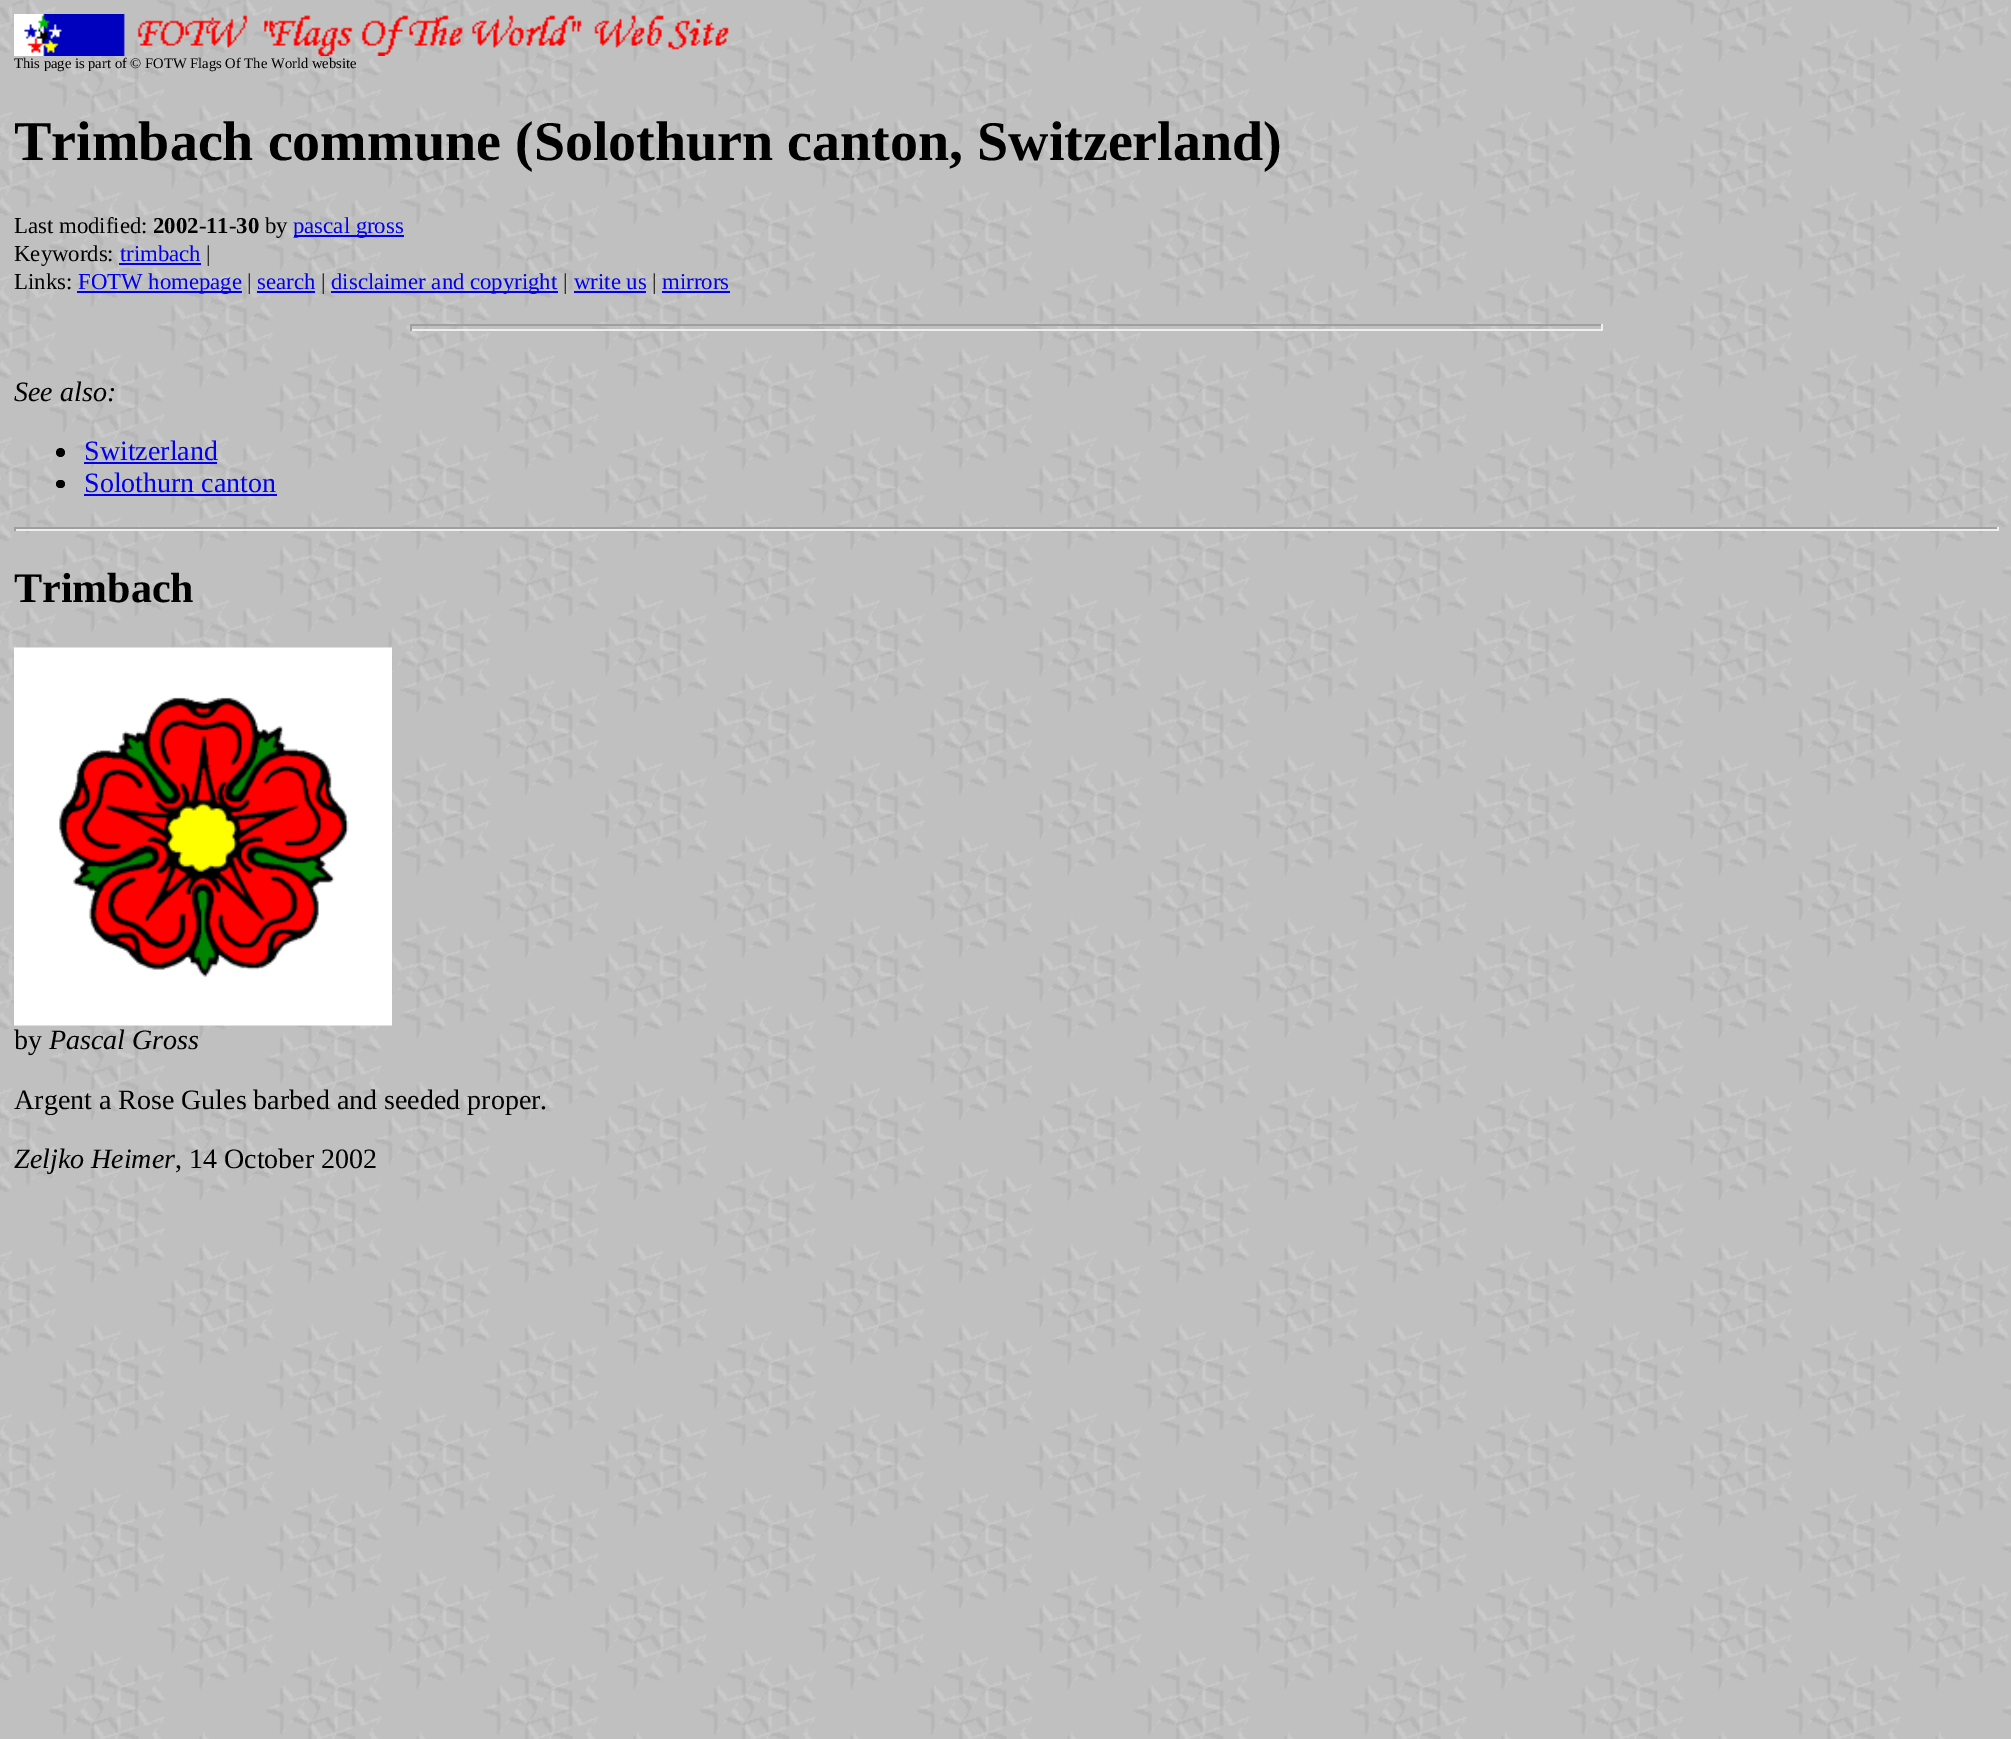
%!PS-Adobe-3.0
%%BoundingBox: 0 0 2011 1739
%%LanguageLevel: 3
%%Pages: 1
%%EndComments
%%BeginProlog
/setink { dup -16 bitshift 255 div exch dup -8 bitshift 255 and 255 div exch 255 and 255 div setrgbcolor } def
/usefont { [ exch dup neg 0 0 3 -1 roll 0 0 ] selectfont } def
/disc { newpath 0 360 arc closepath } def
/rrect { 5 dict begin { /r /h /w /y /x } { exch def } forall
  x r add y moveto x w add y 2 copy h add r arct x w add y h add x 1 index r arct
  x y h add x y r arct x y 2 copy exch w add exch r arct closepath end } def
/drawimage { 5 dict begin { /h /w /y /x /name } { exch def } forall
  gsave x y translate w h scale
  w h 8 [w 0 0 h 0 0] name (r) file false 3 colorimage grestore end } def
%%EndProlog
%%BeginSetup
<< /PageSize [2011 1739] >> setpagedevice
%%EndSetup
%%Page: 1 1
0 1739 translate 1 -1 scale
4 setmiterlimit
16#FFFFFF setink
0 0 2011 1739 rectfill
(img1.raw) 0 0 2011 1739 drawimage
(img2.raw) 14 14 715 42 drawimage
/LiberationSerif-Regular 14.6 usefont
16#000000 setink
14 68 moveto (This page is part of © FOTW Flags Of The World website) show
/LiberationSerif-Bold 56 usefont
14 160 moveto (Trimbach commune \(Solothurn canton, Switzerland\)) show
/LiberationSerif-Regular 22.75 usefont
14 233 moveto (Last modified:) show
/LiberationSerif-Bold 22.75 usefont
153 233 moveto (2002-11-30) show
/LiberationSerif-Regular 22.75 usefont
265 233 moveto (by) show
16#0000EE setink
294 235 110 2 rectfill
293 233 moveto (pascal gross) show
16#000000 setink
14 261 moveto (Keywords:) show
16#0000EE setink
120 261 moveto (trimbach) show
119 263 82 2 rectfill
16#000000 setink
206 261 moveto (|) show
14 289 moveto (Links:) show
16#0000EE setink
77 291 165 2 rectfill
78 289 moveto (FOTW homepage) show
16#000000 setink
247 289 moveto (|) show
16#0000EE setink
257 289 moveto (search) show
257 291 58 2 rectfill
16#000000 setink
321 289 moveto (|) show
16#0000EE setink
331 291 227 2 rectfill
331 289 moveto (disclaimer and copyright) show
16#000000 setink
563 289 moveto (|) show
16#0000EE setink
574 289 moveto (write us) show
574 291 72 2 rectfill
16#000000 setink
652 289 moveto (|) show
16#0000EE setink
662 289 moveto (mirrors) show
[
    [662 291 68 2 16#0000EE]
    [410 324 1193 2 16#9F9F9F]
    [1601 324 2 7 16#EEEEEE]
    [410 329 1193 2 16#EEEEEE]
    [410 324 2 7 16#9F9F9F]
] { aload pop setink rectfill } forall
/LiberationSerif-Italic 28 usefont
16#000000 setink
14 401 moveto (See also:) show
60.5 452.5 4.5 disc fill
/LiberationSerif-Regular 28 usefont
16#0000EE setink
84 460 moveto (Switzerland) show
84 462 133 2 rectfill
16#000000 setink
56 480 9 8 4 rrect fill
16#0000EE setink
84 492 moveto (Solothurn canton) show
[
    [84 494 193 2 16#0000EE]
    [14 527 1985 2 16#9F9F9F]
    [1997 527 2 4 16#EEEEEE]
    [14 529 1985 2 16#EEEEEE]
    [14 527 2 4 16#9F9F9F]
] { aload pop setink rectfill } forall
/LiberationSerif-Bold 42 usefont
16#000000 setink
14 602 moveto (Trimbach) show
(img3.raw) 14 647 378 379 drawimage
/LiberationSerif-Regular 28 usefont
14 1049 moveto (by) show
/LiberationSerif-Italic 28 usefont
49 1049 moveto (Pascal Gross) show
/LiberationSerif-Regular 28 usefont
14 1109 moveto (Argent a Rose Gules barbed and seeded proper.) show
/LiberationSerif-Italic 28 usefont
14 1168 moveto (Zeljko Heimer) show
/LiberationSerif-Regular 28 usefont
175 1168 moveto (, 14 October 2002) show
showpage
%%EOF
